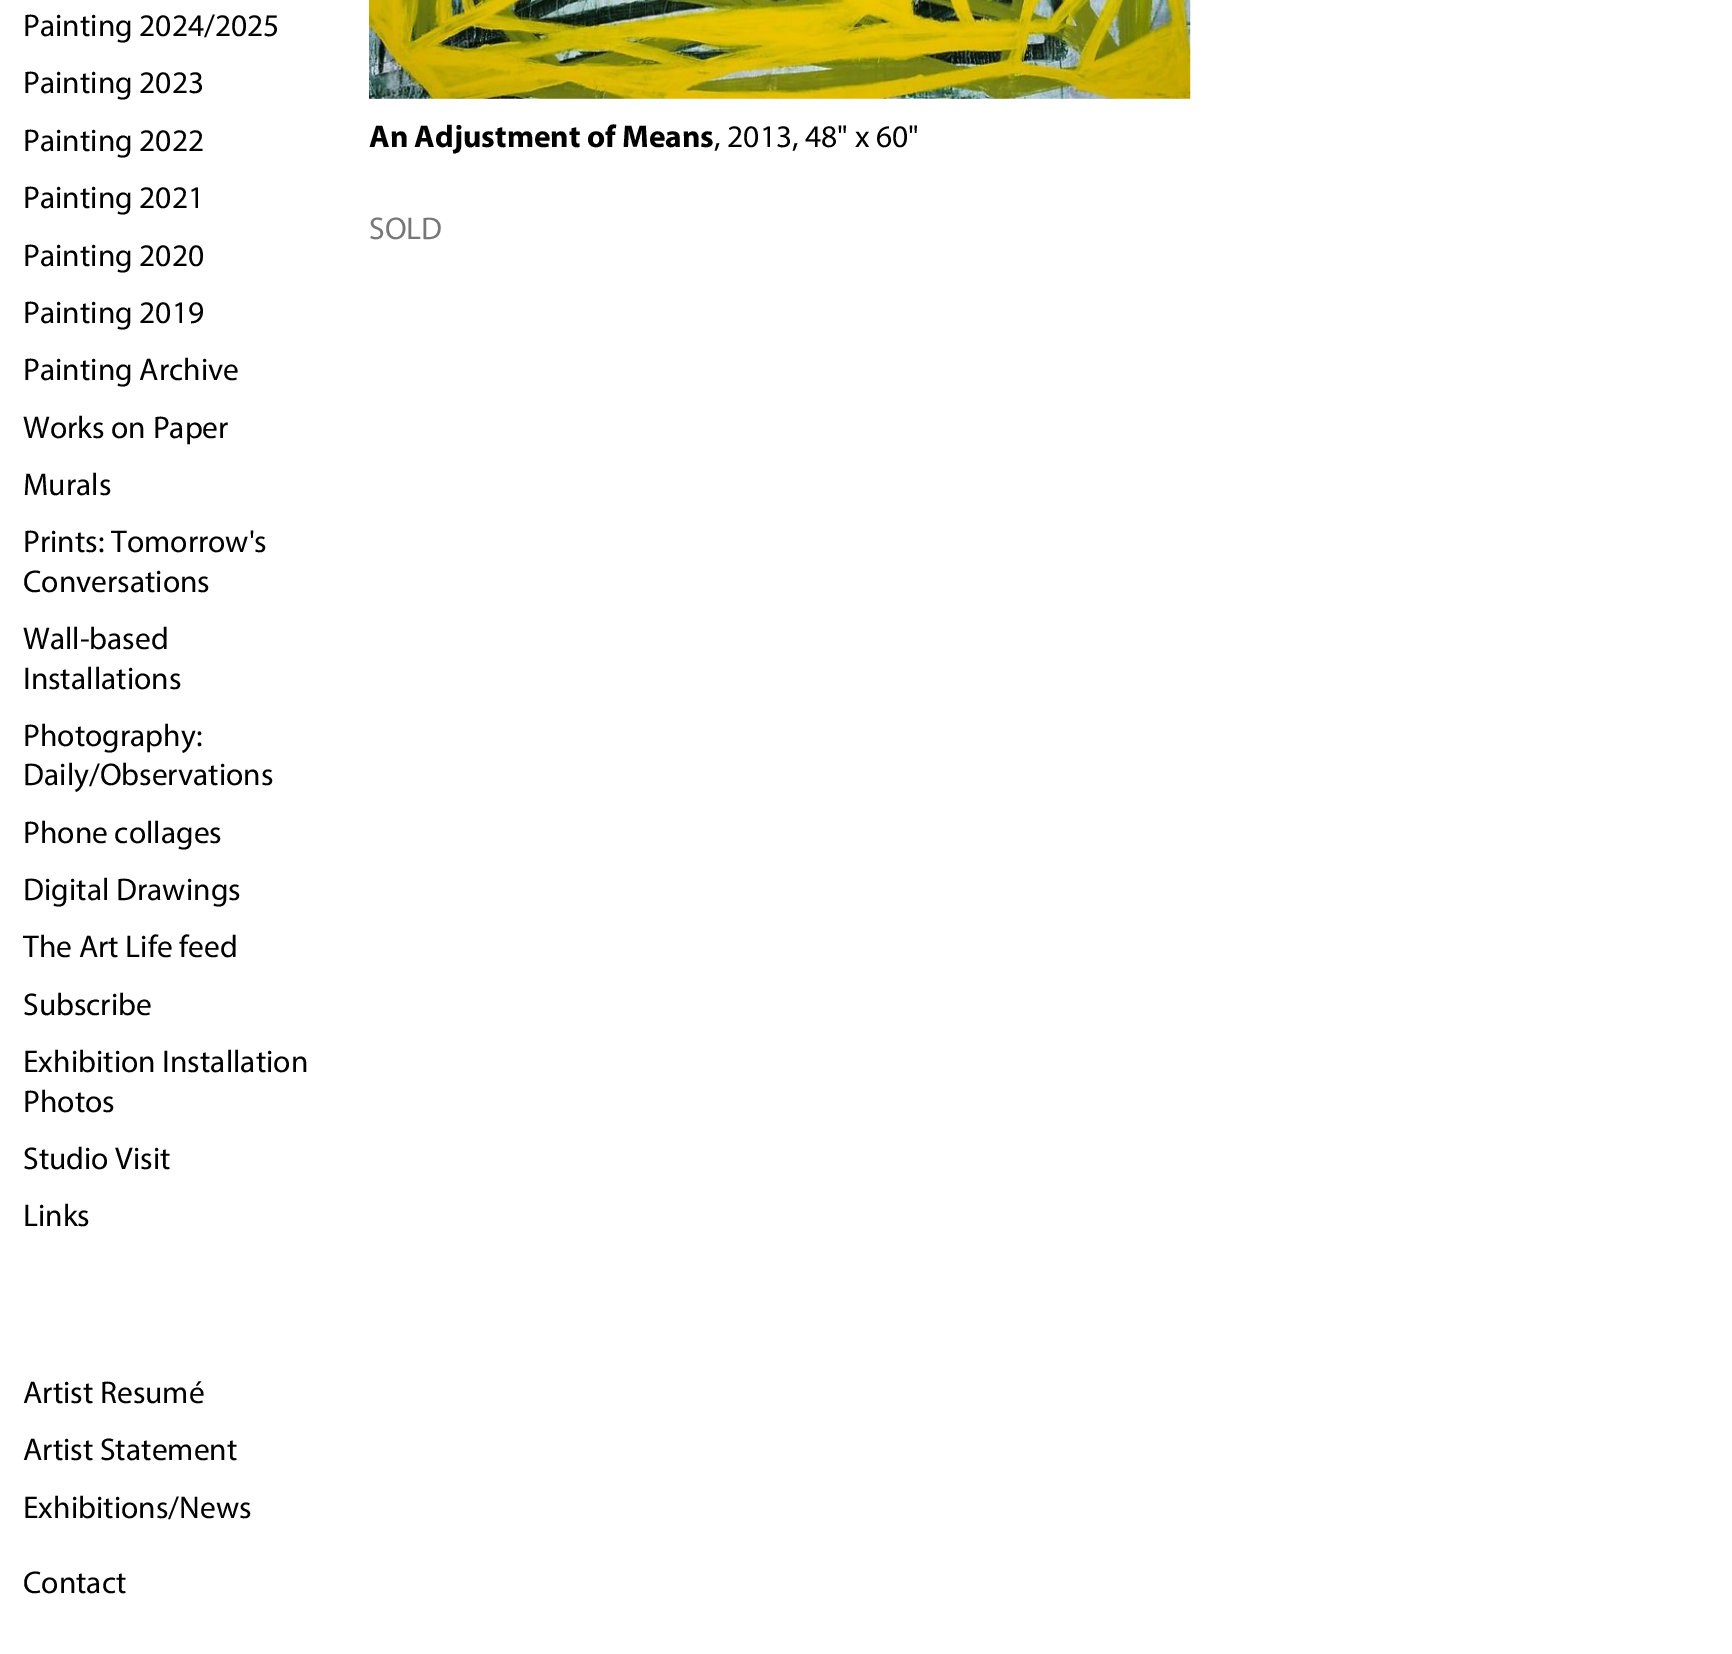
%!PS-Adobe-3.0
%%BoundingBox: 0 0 1732 1654
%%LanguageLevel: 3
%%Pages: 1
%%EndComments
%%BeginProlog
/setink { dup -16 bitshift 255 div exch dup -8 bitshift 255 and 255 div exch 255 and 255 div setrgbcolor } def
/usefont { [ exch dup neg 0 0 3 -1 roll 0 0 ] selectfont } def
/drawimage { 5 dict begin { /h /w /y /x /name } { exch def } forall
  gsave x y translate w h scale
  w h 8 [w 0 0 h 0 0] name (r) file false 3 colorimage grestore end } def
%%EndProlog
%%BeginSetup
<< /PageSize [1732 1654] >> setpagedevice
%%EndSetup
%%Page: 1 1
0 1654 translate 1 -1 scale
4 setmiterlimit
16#FFFFFF setink
0 0 1732 1654 rectfill
/Myriad-Regular 31.5 usefont
16#000000 setink
[
    [(Painting 2024/2025) 23 36]
    [(Painting 2023) 23 93]
    [(Painting 2022) 23 151]
    [(Painting 2021) 23 208]
    [(Painting 2020) 23 266]
    [(Painting 2019) 23 323]
    [(Painting Archive) 23 380]
    [(Works on Paper) 23 438]
    [(Murals) 23 495]
    [(Prints: Tomorrow's) 23 552]
    [(Conversations) 23 592]
    [(Wall-based) 23 649]
    [(Installations) 23 689]
    [(Photography:) 23 746]
    [(Daily/Observations) 23 785]
    [(Phone collages) 23 843]
    [(Digital Drawings) 23 900]
    [(The Art Life feed) 23 957]
    [(Subscribe) 23 1015]
    [(Exhibition Installation) 23 1072]
    [(Photos) 23 1112]
    [(Studio Visit) 23 1169]
    [(Links) 23 1226]
    [(Artist Resumé) 23 1403]
    [(Artist Statement) 23 1460]
    [(Exhibitions/News) 23 1518]
    [(Contact) 23 1593]
] { aload pop moveto show } forall
(img1.raw) 369 0 822 99 drawimage
/Myriad-Bold 31.5 usefont
369 147 moveto (An Adjustment of Means) show
/Myriad-Regular 31.5 usefont
714 147 moveto (, 2013, 48" x 60") show
16#777777 setink
369 239 moveto (SOLD) show
showpage
%%EOF
